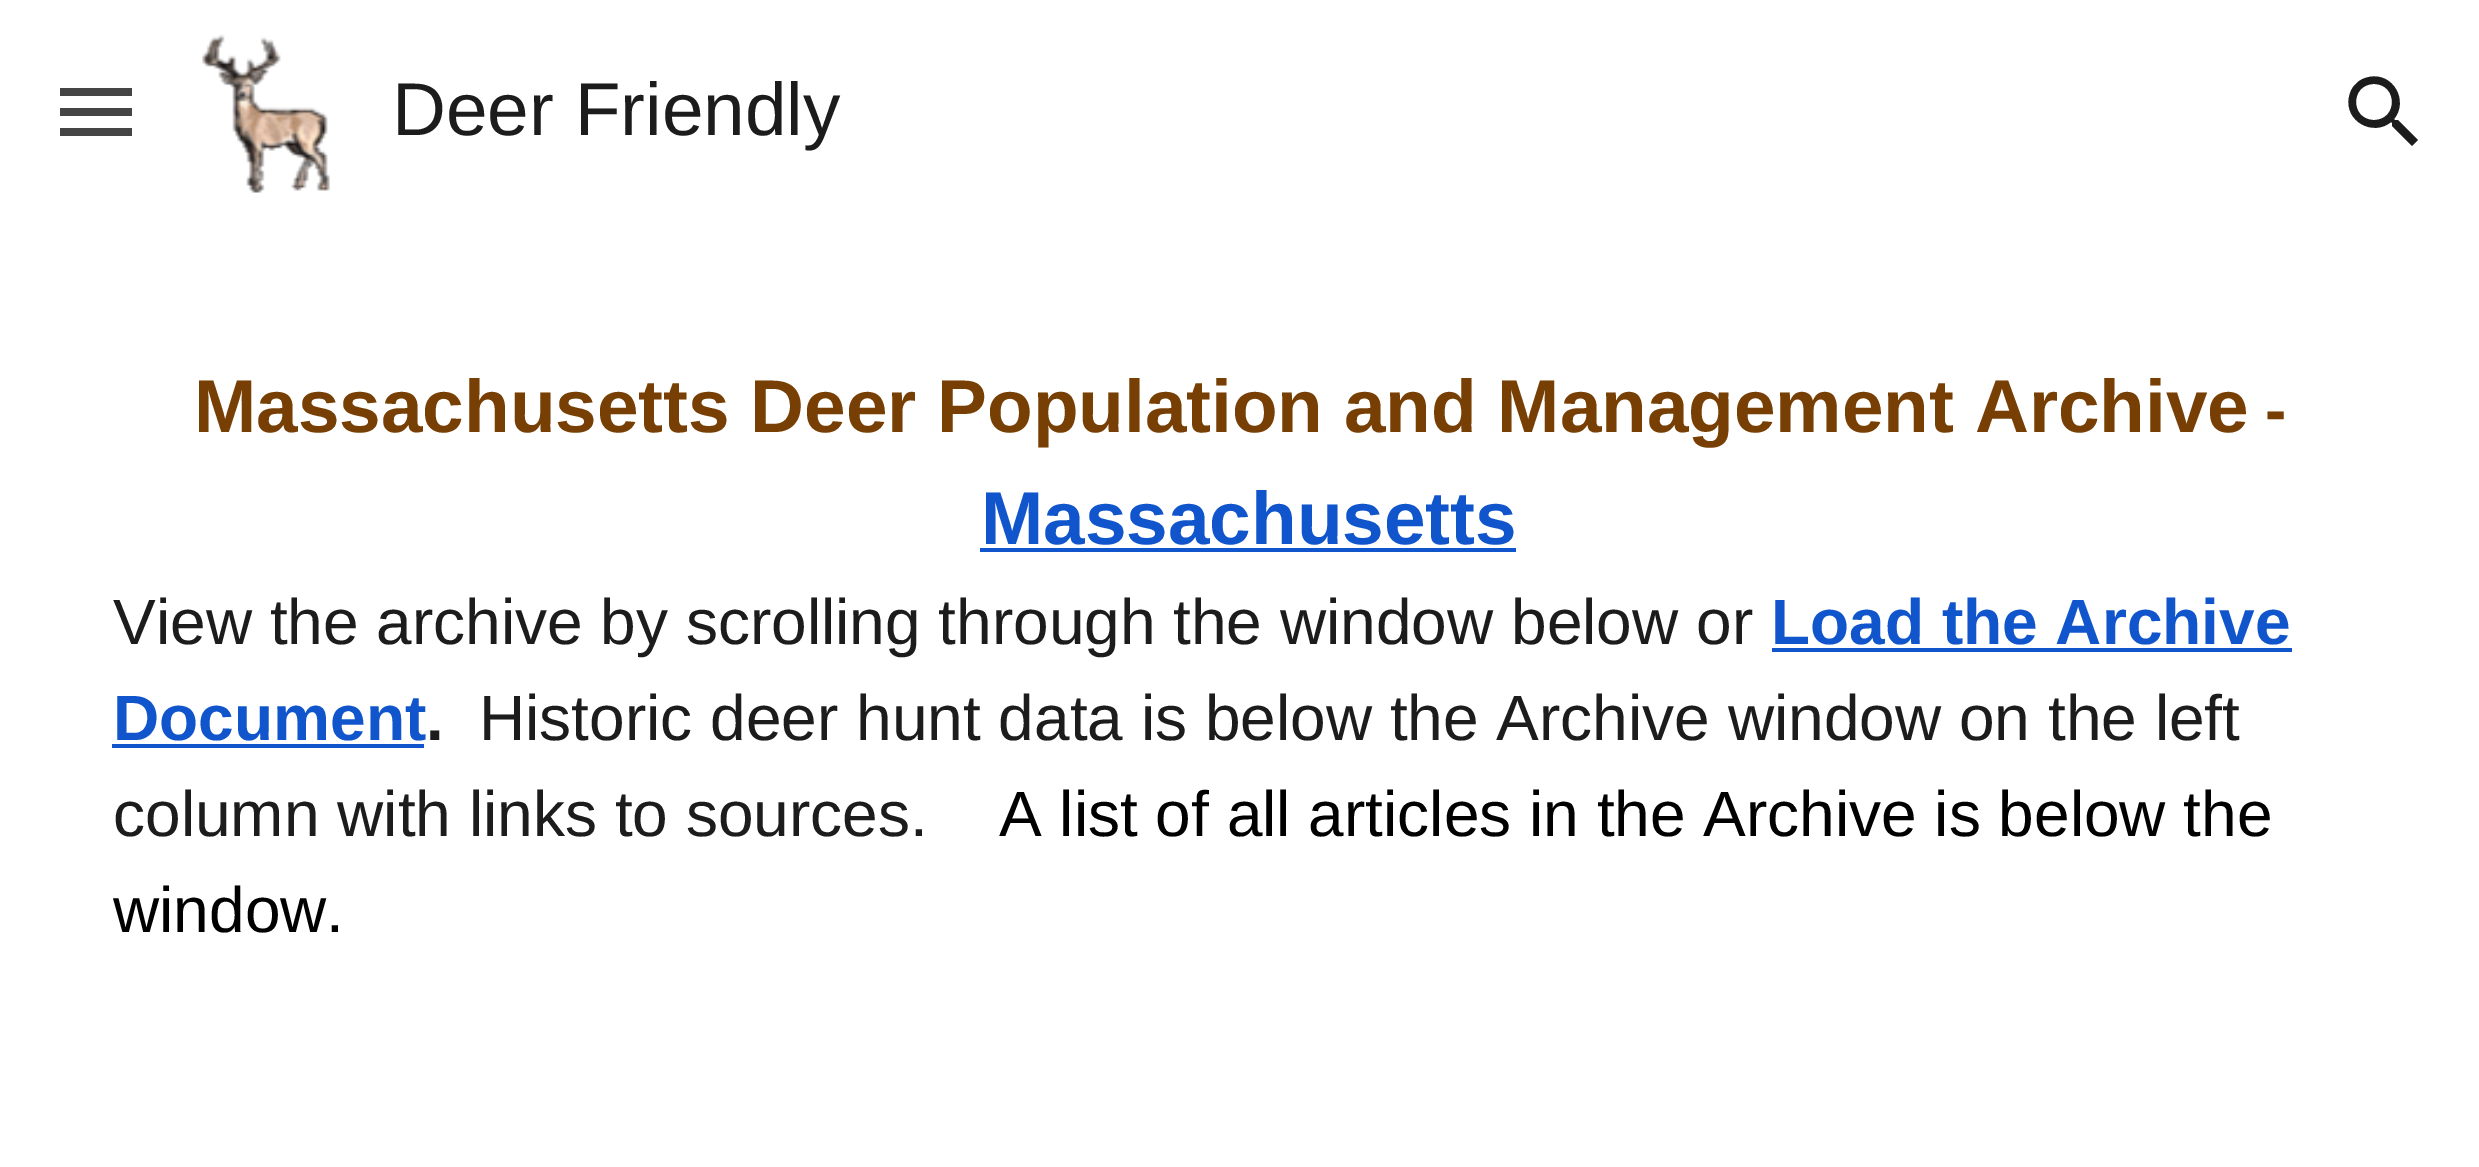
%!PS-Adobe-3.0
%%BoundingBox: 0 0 2479 1167
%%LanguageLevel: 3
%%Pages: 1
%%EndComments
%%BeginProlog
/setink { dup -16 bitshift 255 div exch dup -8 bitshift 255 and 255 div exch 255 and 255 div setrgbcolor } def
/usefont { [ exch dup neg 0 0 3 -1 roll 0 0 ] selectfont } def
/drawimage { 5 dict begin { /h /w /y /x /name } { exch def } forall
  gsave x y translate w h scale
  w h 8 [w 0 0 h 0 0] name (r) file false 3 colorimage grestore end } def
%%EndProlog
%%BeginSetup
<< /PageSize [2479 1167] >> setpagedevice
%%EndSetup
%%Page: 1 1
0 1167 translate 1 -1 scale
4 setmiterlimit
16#FFFFFF setink
0 0 2479 1167 rectfill
[
    [60 88 72 8 16#454545]
    [60 108 72 8 16#454545]
    [60 128 72 8 16#454545]
] { aload pop setink rectfill } forall
(img1.raw) 202 34 128 159 drawimage
/LiberationSans-Regular 74.7 usefont
16#1C1C1C setink
392 135 moveto (Deer Friendly) show
2398 120 moveto 2395 120 lineto 2394 119 lineto 2409 101 2393 72 2369 77 curveto 2364 78 2359 80 2356 84 curveto 2352 87 2350 92 2349 97 curveto 2344 121 2373 137 2391 122 curveto 2392 123 lineto 2392 126 lineto 2412 146 lineto 2418 140 lineto closepath 2374 120 moveto 2350 120 2350 84 2374 84 curveto 2398 84 2398 120 2374 120 curveto closepath fill
/LiberationSans-Bold 74.7 usefont
16#783F04 setink
194 432 moveto (Massachusetts Deer Population and Management Archive) show
/LiberationSans-Bold 64 usefont
2265 432 moveto (-) show
/LiberationSans-Bold 74.7 usefont
16#1155CC setink
981 544 moveto (Massachusetts) show
980 548 536 4 rectfill
/LiberationSans-Regular 64 usefont
16#1C1C1C setink
113 644 moveto (View the archive by scrolling through the window below or) show
/LiberationSans-Bold 64 usefont
16#1155CC setink
1771 644 moveto (Load the Archive) show
1772 648 520 4 rectfill
113 740 moveto (Document) show
112 744 312 4 rectfill
16#1C1C1C setink
426 740 moveto (.) show
/LiberationSans-Regular 64 usefont
479 740 moveto (Historic deer hunt data is below the Archive window on the left) show
113 836 moveto (column with links to sources.) show
16#000000 setink
999 836 moveto (A list of all articles in the Archive is below the) show
113 932 moveto (window.) show
showpage
%%EOF
